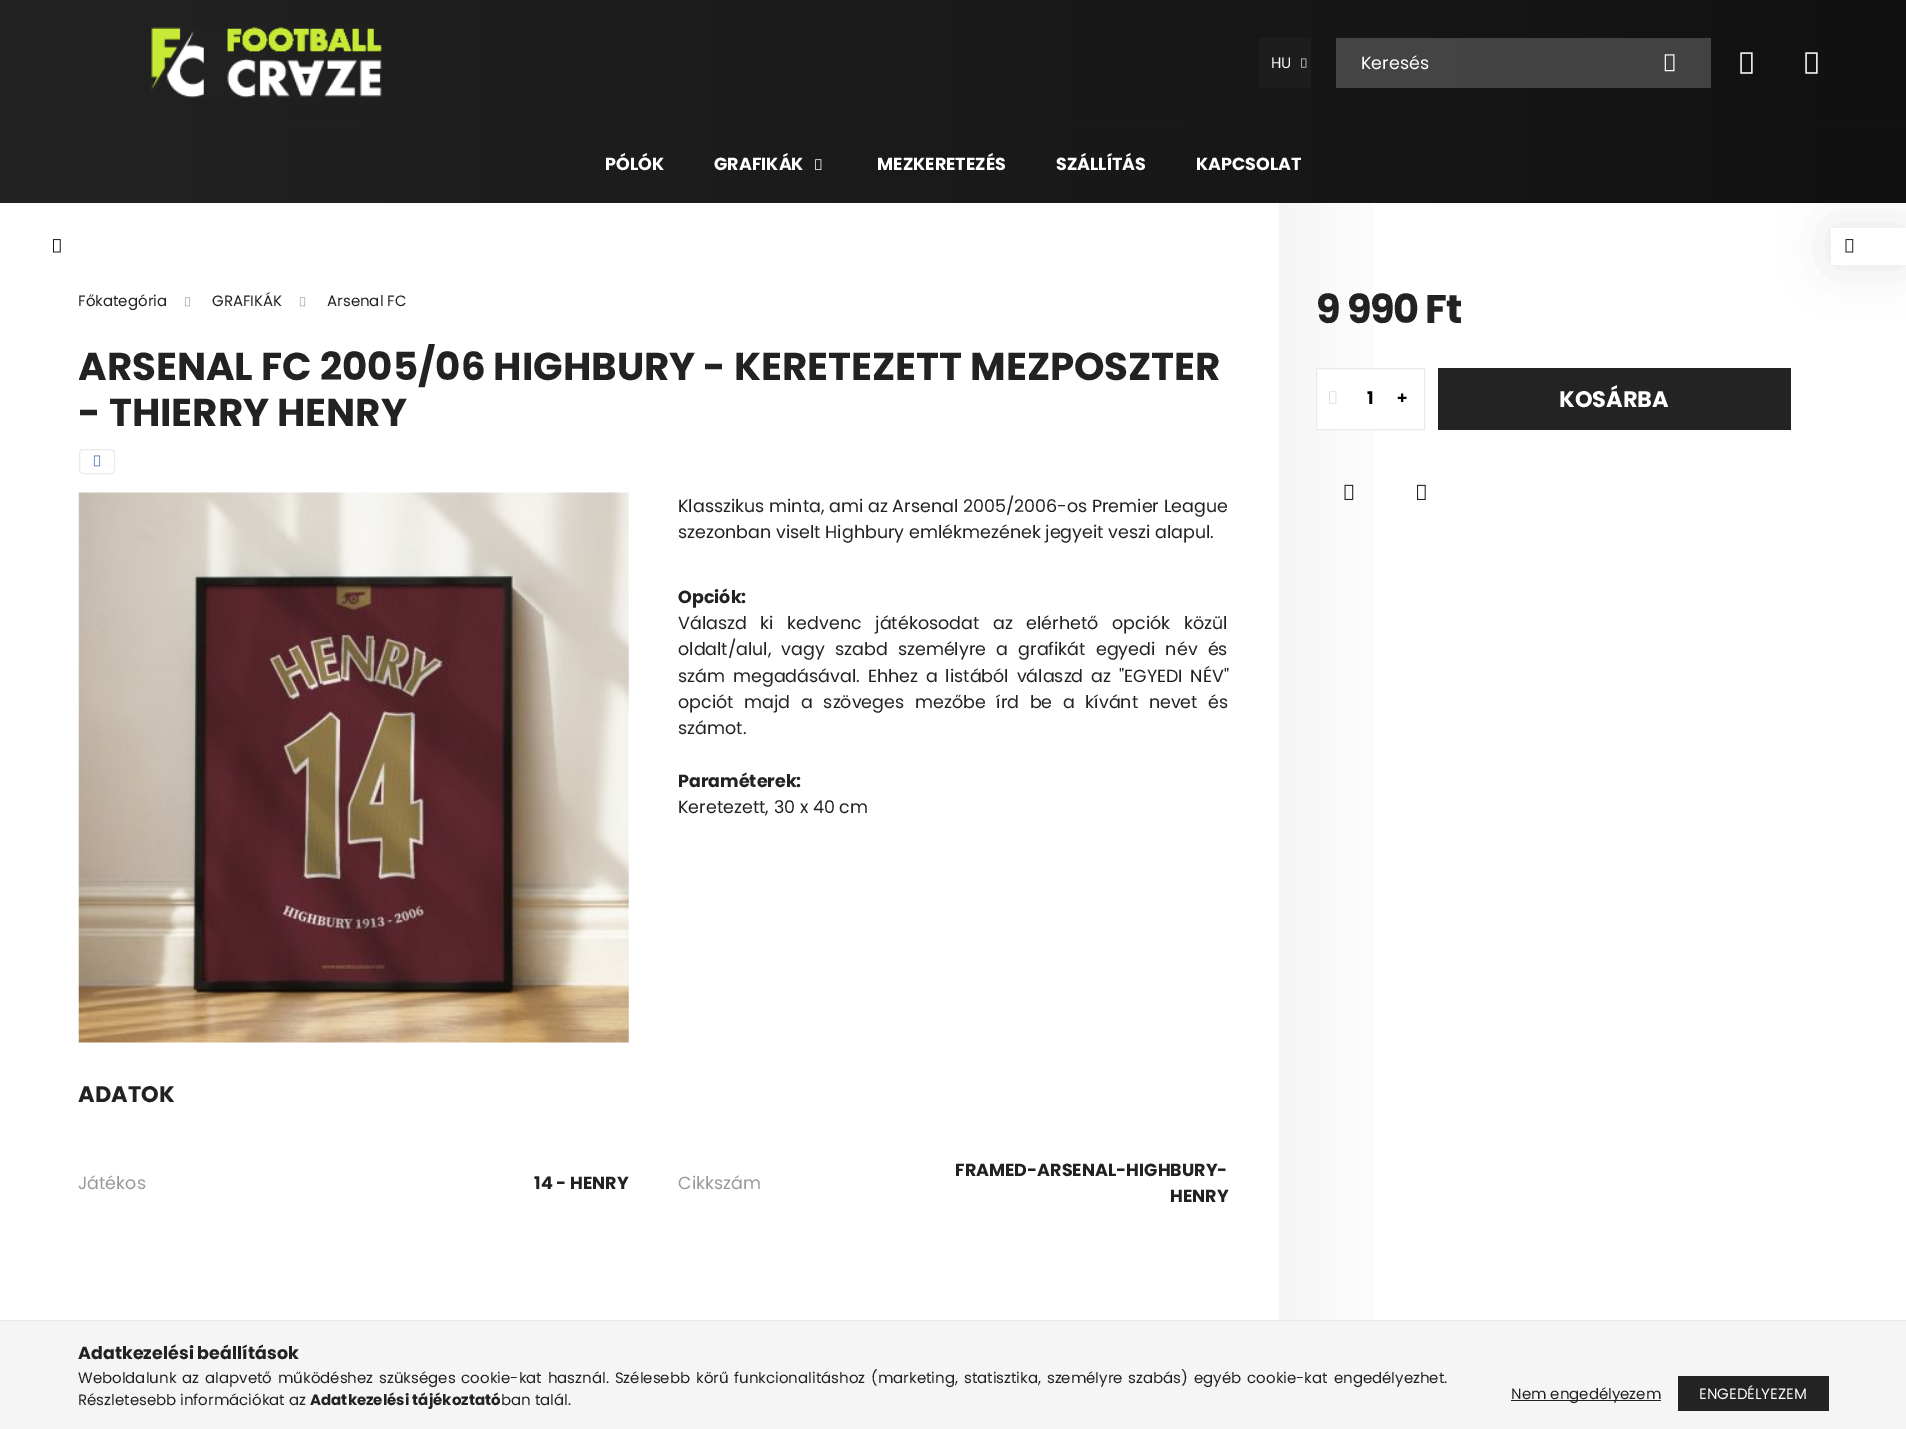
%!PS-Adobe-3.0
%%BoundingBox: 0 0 1906 1429
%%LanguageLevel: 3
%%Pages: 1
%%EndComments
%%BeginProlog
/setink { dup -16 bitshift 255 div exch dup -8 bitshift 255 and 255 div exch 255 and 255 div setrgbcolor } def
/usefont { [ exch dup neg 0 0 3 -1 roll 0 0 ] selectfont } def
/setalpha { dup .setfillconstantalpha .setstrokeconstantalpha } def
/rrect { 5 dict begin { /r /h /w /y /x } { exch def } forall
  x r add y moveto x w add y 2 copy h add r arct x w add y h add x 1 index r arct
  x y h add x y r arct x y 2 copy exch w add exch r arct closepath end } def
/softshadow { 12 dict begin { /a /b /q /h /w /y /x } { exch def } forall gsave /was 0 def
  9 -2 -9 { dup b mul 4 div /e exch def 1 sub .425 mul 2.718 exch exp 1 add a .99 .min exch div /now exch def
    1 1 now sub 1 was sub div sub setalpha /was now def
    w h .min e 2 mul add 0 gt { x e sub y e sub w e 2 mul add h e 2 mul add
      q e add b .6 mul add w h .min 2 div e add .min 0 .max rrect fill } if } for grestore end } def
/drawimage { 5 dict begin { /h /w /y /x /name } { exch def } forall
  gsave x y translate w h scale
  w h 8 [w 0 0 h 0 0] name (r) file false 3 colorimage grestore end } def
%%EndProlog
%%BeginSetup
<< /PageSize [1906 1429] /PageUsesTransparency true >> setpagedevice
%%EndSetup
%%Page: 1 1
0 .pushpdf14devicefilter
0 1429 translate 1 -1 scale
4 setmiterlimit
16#FFFFFF setink
0 0 1906 1429 rectfill
gsave 0 0 moveto 1906 0 lineto 1906 125 lineto 0 125 lineto closepath clip newpath
<< /ShadingType 2 /ColorSpace /DeviceRGB /Coords [0 63 1906 62] /Extend [true true] /Function << /FunctionType 2 /Domain [0 1] /C0 [0.137 0.137 0.137] /C1 [0.067 0.067 0.067] /N 1 >> >> shfill grestore
gsave 1336 38 moveto 1711 38 lineto 1711 88 lineto 1336 88 lineto closepath clip newpath
<< /ShadingType 2 /ColorSpace /DeviceRGB /Coords [0 63 1906 62] /Extend [true true] /Function << /FunctionType 2 /Domain [0 1] /C0 [0.31 0.31 0.31] /C1 [0.255 0.255 0.255] /N 1 >> >> shfill grestore
(img1.raw) 151 27 231 71 drawimage
16#1C1D1C setink
1259 38 52 50 rectfill
/Poppins-Regular 15 usefont
16#FFFFFF setink
1271 68 moveto (HU) show
(img2.raw) 1301 58 6 10 drawimage
/Poppins-Regular 17.5 usefont
1361 69 moveto (Keresés) show
(img3.raw) 1664 54 11 18 drawimage
(img4.raw) 1740 52 13 22 drawimage
(img5.raw) 1805 52 13 22 drawimage
16#000000 setink
1831 228 75 37 0 25 0.1 softshadow
gsave 0 126 moveto 1906 126 lineto 1906 203 lineto 0 203 lineto closepath clip newpath
<< /ShadingType 2 /ColorSpace /DeviceRGB /Coords [0 164 1906 164] /Extend [true true] /Function << /FunctionType 2 /Domain [0 1] /C0 [0.137 0.137 0.137] /C1 [0.067 0.067 0.067] /N 1 >> >> shfill grestore
gsave 0 125 moveto 1906 125 lineto 1906 126 lineto 0 126 lineto closepath clip newpath
<< /ShadingType 2 /ColorSpace /DeviceRGB /Coords [0 164 1906 164] /Extend [true true] /Function << /FunctionType 2 /Domain [0 1] /C0 [0.137 0.137 0.137] /C1 [0.078 0.078 0.078] /N 1 >> >> shfill grestore
/Poppins-Bold 17.5 usefont
16#FFFFFF setink
605 170 moveto (PÓLÓK) show
714 170 moveto (GRAFIKÁK) show
(img6.raw) 815 159 7 11 drawimage
[
    [(MEZKERETEZÉS) 877 170]
    [(SZÁLLÍTÁS) 1056 170]
    [(KAPCSOLAT) 1196 170]
] { aload pop moveto show } forall
(img7.raw) 53 239 8 14 drawimage
1831 228 75 37 rectfill
(img8.raw) 1845 239 9 14 drawimage
/Poppins-Regular 15 usefont
16#222222 setink
78 306 moveto (Főkategória) show
(img9.raw) 184 297 7 10 drawimage
212 306 moveto (GRAFIKÁK) show
(img9.raw) 299 297 7 10 drawimage
327 306 moveto (Arsenal FC) show
gsave
79 344 1150 92 rectclip
/Poppins-Bold 38.75 usefont
78 380 moveto (ARSENAL FC 2005/06 HIGHBURY - KERETEZETT MEZPOSZTER) show
grestore
/Poppins-Bold 38.75 usefont
78 426 moveto (- THIERRY HENRY) show
16#EAEAEA setink
79.5 449.5 35 24 3.5 rrect stroke
(img10.raw) 93 455 8 12 drawimage
(img11.raw) 78 492 551 551 drawimage
/Poppins-Regular 17.5 usefont
16#222222 setink
678 512 moveto (Klasszikus minta, ami az Arsenal 2005/2006-os Premier League) show
678 538 moveto (szezonban viselt Highbury emlékmezének jegyeit veszi alapul.) show
/Poppins-Bold 17.5 usefont
678 603 moveto (Opciók:) show
/Poppins-Regular 17.5 usefont
678 629 moveto 9 0 32 (Válaszd ki kedvenc játékosodat az elérhető opciók közül) widthshow
678 655 moveto 5.5 0 32 (oldalt/alul, vagy szabd személyre a grafikát egyedi név és) widthshow
678 682 moveto 3.25 0 32 (szám megadásával. Ehhez a listából válaszd az "EGYEDI NÉV") widthshow
678 708 moveto 6 0 32 (opciót majd a szöveges mezőbe írd be a kívánt nevet és) widthshow
678 734 moveto (számot.) show
/Poppins-Bold 17.5 usefont
678 787 moveto (Paraméterek:) show
/Poppins-Regular 17.5 usefont
678 813 moveto (Keretezett, 30 x 40 cm) show
gsave 1279 203 moveto 1374 203 lineto 1374 1080 lineto 1279 1080 lineto closepath clip newpath
<< /ShadingType 2 /ColorSpace /DeviceRGB /Coords [1279 641 1829 641] /Extend [true true] /Function << /FunctionType 3 /Domain [0 1] /Functions [<< /FunctionType 2 /Domain [0 1] /C0 [0.961 0.961 0.961] /C1 [1 1 1] /N 1 >> << /FunctionType 2 /Domain [0 1] /C0 [1 1 1] /C1 [1 1 1] /N 1 >>] /Bounds [0.23] /Encode [0 1 0 1] >> >> shfill grestore
/Poppins-Bold 40 usefont
1316 323 moveto -1.25 0 (9 990 Ft) ashow
16#FFFFFF setink
1317 369 57 60 rectfill
16#EAEAEA setink
1316.5 368.5 108 61 rectstroke
(img12.raw) 1329 391 8 13 drawimage
/Poppins-Bold 17.5 usefont
16#000000 setink
1367 404 moveto (1) show
/NotoSans-Black 17.5 usefont
1397 404 moveto (+) show
16#232323 setink
1438 368 353 62 rectfill
/Poppins-Bold 22.5 usefont
16#FFFFFF setink
1559 407 moveto (KOSÁRBA) show
(img13.raw) 1344 484 10 16 drawimage
(img14.raw) 1417 484 9 16 drawimage
16#222222 setink
78 1102 moveto (ADATOK) show
/Poppins-Regular 17.5 usefont
16#999999 setink
78 1189 moveto (Játékos) show
/Poppins-Bold 17.5 usefont
16#222222 setink
534 1189 moveto (14 - HENRY) show
/Poppins-Regular 17.5 usefont
16#999999 setink
678 1189 moveto (Cikkszám) show
/Poppins-Bold 17.5 usefont
16#222222 setink
955 1176 moveto (FRAMED-ARSENAL-HIGHBURY-) show
1170 1202 moveto (HENRY) show
gsave 1279 1080 moveto 1374 1080 lineto 1374 1320 lineto 1279 1320 lineto closepath clip newpath
<< /ShadingType 2 /ColorSpace /DeviceRGB /Coords [1279 1332 1829 1332] /Extend [true true] /Function << /FunctionType 3 /Domain [0 1] /Functions [<< /FunctionType 2 /Domain [0 1] /C0 [0.961 0.961 0.961] /C1 [1 1 1] /N 1 >> << /FunctionType 2 /Domain [0 1] /C0 [1 1 1] /C1 [1 1 1] /N 1 >>] /Bounds [0.23] /Encode [0 1 0 1] >> >> shfill grestore
16#F5F5F5 setink
0 1321 1906 108 rectfill
16#EAEAEA setink
0 1320 1906 1 rectfill
16#222222 setink
78 1359 moveto (Adatkezelési beállítások) show
/Poppins-Regular 15 usefont
78 1383 moveto 1.9 0 32 (Weboldalunk az alapvető működéshez szükséges cookie-kat használ. Szélesebb körű funkcionalitáshoz \(marketing, statisztika, személyre szabás\) egyéb cookie-kat engedélyezhet.) widthshow
78 1405 moveto (Részletesebb információkat az) show
/Poppins-Bold 15 usefont
310 1405 moveto (Adatkezelési tájékoztató) show
/Poppins-Regular 15 usefont
501 1405 moveto (ban talál.) show
1511 1400 150 1 rectfill
1511 1399 moveto (Nem engedélyezem) show
16#232323 setink
1678 1376 151 35 rectfill
16#FFFFFF setink
1699 1399 moveto (ENGEDÉLYEZEM) show
.poppdf14devicefilter showpage
%%EOF
